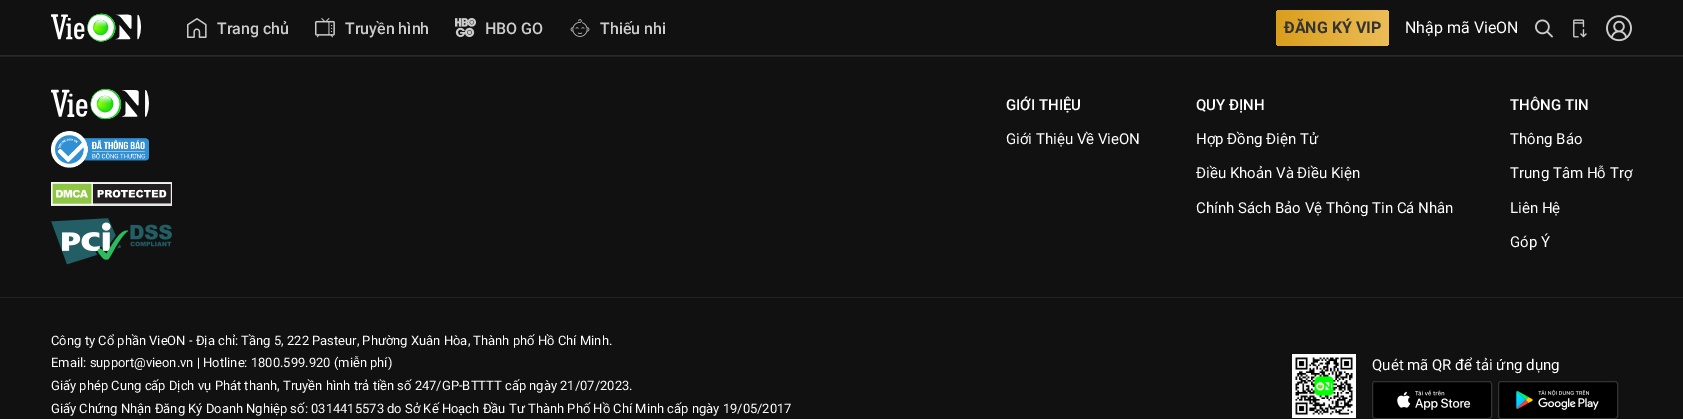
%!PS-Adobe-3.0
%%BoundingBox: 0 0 1683 419
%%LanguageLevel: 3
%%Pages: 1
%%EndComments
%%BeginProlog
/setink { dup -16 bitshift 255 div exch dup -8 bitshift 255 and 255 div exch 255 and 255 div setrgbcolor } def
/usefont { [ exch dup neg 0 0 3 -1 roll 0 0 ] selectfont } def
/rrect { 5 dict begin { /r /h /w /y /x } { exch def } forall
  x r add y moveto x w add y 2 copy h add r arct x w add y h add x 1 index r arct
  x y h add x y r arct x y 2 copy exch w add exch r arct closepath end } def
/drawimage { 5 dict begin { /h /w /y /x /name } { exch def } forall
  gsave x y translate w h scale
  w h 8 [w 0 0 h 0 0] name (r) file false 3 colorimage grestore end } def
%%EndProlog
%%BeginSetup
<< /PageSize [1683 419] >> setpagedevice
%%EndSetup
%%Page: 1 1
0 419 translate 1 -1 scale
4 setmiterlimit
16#111111 setink
0 0 1683 419 rectfill
16#292929 setink
0 55 1683 1 rectfill
(img1.raw) 51 13 90 29 drawimage
(img2.raw) 187 18 20 20 drawimage
/Roboto-Medium 16 usefont
16#CCCCCC setink
217 34 moveto (Trang chủ) show
(img3.raw) 315 18 20 20 drawimage
345 34 moveto (Truyền hình) show
(img4.raw) 455 18 21 20 drawimage
485 34 moveto (HBO GO) show
(img5.raw) 570 19 20 18 drawimage
600 34 moveto (Thiếu nhi) show
gsave 1276 10 113 36 4 rrect clip newpath
<< /ShadingType 2 /ColorSpace /DeviceRGB /Coords [1276 28 1389 28] /Extend [true true] /Function << /FunctionType 2 /Domain [0 1] /C0 [0.855 0.62 0.11] /C1 [0.925 0.741 0.341] /N 1 >> >> shfill grestore
/Roboto-Bold 16 usefont
16#333333 setink
1284 33 moveto (ĐĂNG KÝ VIP) show
/Roboto-Regular 16 usefont
16#FFFFFF setink
1405 33 moveto (Nhập mã VieON) show
(img6.raw) 1535 19 18 19 drawimage
(img7.raw) 1573 19 14 19 drawimage
(img8.raw) 1606 15 26 27 drawimage
16#222222 setink
0 56 1683 1 rectfill
(img9.raw) 51 89 98 30 drawimage
(img10.raw) 51 131 98 37 drawimage
16#E6E6E6 setink
51 182 121 24 rectfill
(img11.raw) 51 182 121 23 drawimage
(img12.raw) 51 218 121 47 drawimage
/Roboto-Medium 15 usefont
16#FFFFFF setink
1006 110 moveto (GIỚI THIỆU) show
/Roboto-Regular 15 usefont
1006 144 moveto (Giới Thiệu Về VieON) show
/Roboto-Medium 15 usefont
1196 110 moveto (QUY ĐỊNH) show
/Roboto-Regular 15 usefont
[
    [(Hợp Đồng Điện Tử) 1196 144]
    [(Điều Khoản Và Điều Kiện) 1196 178]
    [(Chính Sách Bảo Vệ Thông Tin Cá Nhân) 1196 213]
] { aload pop moveto show } forall
/Roboto-Medium 15 usefont
1510 110 moveto (THÔNG TIN) show
/Roboto-Regular 15 usefont
[
    [(Thông Báo) 1510 144]
    [(Trung Tâm Hỗ Trợ) 1510 178]
    [(Liên Hệ) 1510 213]
    [(Góp Ý) 1510 247]
] { aload pop moveto show } forall
16#222222 setink
0 297 1683 1 rectfill
/Roboto-Regular 13 usefont
16#FFFFFF setink
[
    [(Công ty Cổ phần VieON - Địa chỉ: Tầng 5, 222 Pasteur, Phường Xuân Hòa, Thành phố Hồ Chí Minh.) 51 345]
    [(Email: support@vieon.vn | Hotline: 1800.599.920 \(miễn phí\)) 51 367]
    [(Giấy phép Cung cấp Dịch vụ Phát thanh, Truyền hình trả tiền số 247/GP-BTTTT cấp ngày 21/07/2023.) 51 390]
    [(Giấy Chứng Nhận Đăng Ký Doanh Nghiệp số: 0314415573 do Sở Kế Hoạch Đầu Tư Thành Phố Hồ Chí Minh cấp ngày 19/05/2017) 51 413]
] { aload pop moveto show } forall
(img13.raw) 1292 354 64 64 drawimage
/Roboto-Regular 15 usefont
1372 370 moveto (Quét mã QR để tải ứng dụng) show
16#000000 setink
1372.5 381.5 119 37 2.5 rrect gsave fill grestore
16#333333 setink
stroke
(img14.raw) 1397 390 74 20 drawimage
16#000000 setink
1498.5 381.5 119 37 2.5 rrect gsave fill grestore
16#333333 setink
stroke
(img15.raw) 1516 389 83 21 drawimage
showpage
%%EOF
